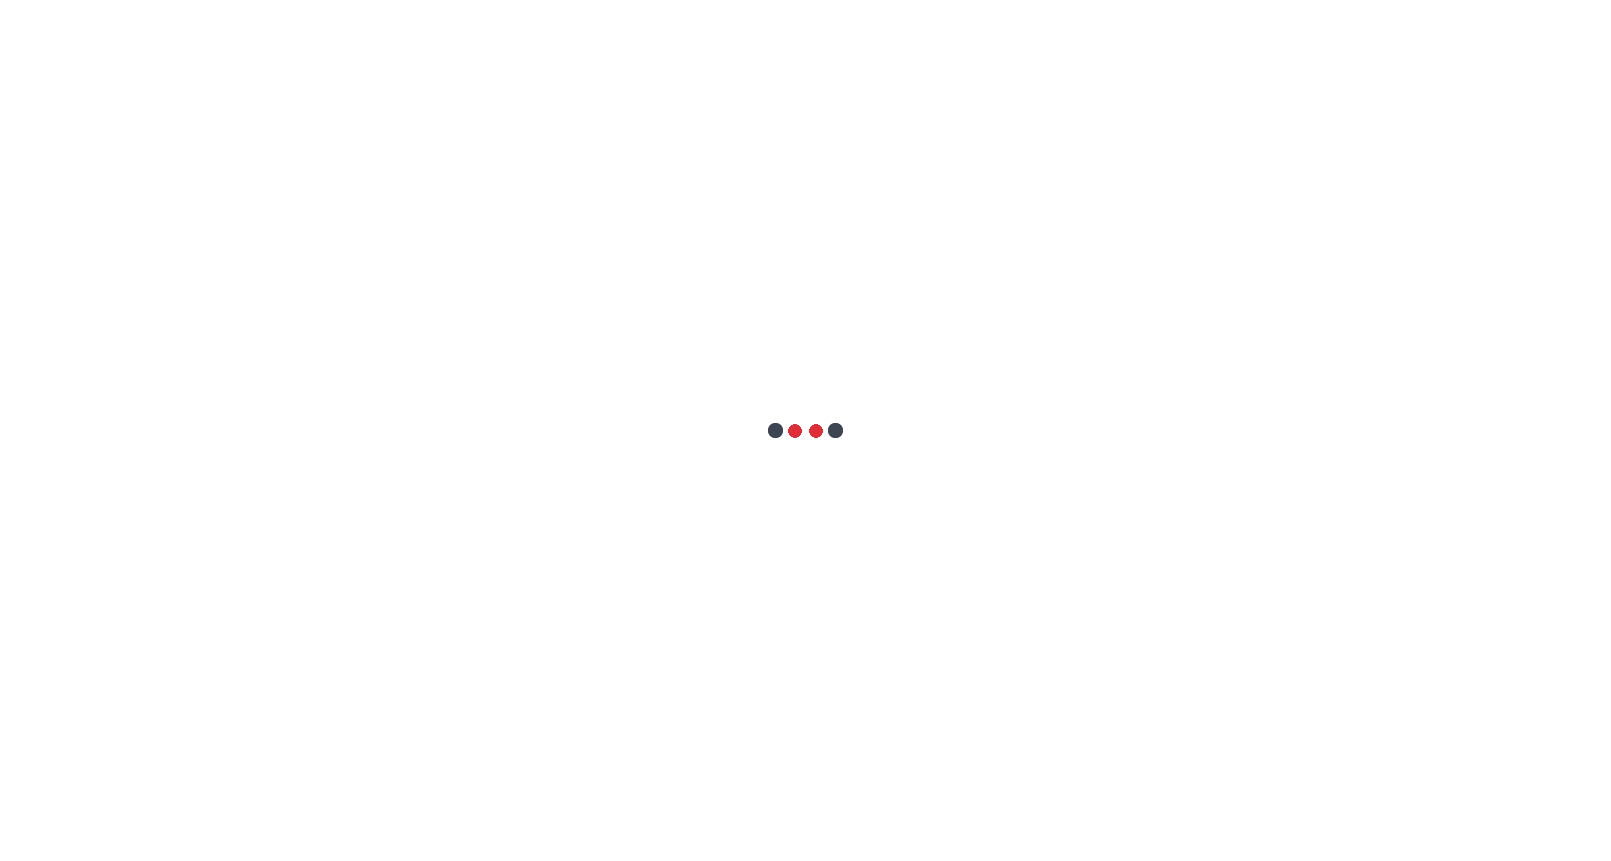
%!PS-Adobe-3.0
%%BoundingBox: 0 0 1611 861
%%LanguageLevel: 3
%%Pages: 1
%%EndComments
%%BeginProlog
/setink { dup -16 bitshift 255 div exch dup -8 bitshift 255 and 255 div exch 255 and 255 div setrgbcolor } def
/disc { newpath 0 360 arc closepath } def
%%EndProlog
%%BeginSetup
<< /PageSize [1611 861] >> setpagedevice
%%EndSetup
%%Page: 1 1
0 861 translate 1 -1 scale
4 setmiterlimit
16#FFFFFF setink
0 0 1611 861 rectfill
gsave 809 424 moveto 823 424 lineto 823 438 lineto 809 438 lineto closepath clip newpath 816 431 translate 7.5 7.5 scale
<< /ShadingType 3 /ColorSpace /DeviceRGB /Coords [0 0 0 0 0 1] /Extend [true true] /Function << /FunctionType 3 /Domain [0 1] /Functions [<< /FunctionType 2 /Domain [0 1] /C0 [0.875 0.18 0.22] /C1 [0.875 0.18 0.22] /N 1 >> << /FunctionType 2 /Domain [0 1] /C0 [0.875 0.18 0.22] /C1 [1 1 1] /N 1 >>] /Bounds [0.95] /Encode [0 1 0 1] >> >> shfill grestore
gsave 788 424 moveto 802 424 lineto 802 438 lineto 788 438 lineto closepath clip newpath 795 431 translate 7.5 7.5 scale
<< /ShadingType 3 /ColorSpace /DeviceRGB /Coords [0 0 0 0 0 1] /Extend [true true] /Function << /FunctionType 3 /Domain [0 1] /Functions [<< /FunctionType 2 /Domain [0 1] /C0 [0.875 0.18 0.22] /C1 [0.875 0.18 0.22] /N 1 >> << /FunctionType 2 /Domain [0 1] /C0 [0.875 0.18 0.22] /C1 [1 1 1] /N 1 >>] /Bounds [0.95] /Encode [0 1 0 1] >> >> shfill grestore
16#3D4452 setink
775.5 430.5 7.5 disc fill
835.5 430.5 7.5 disc fill
showpage
%%EOF
